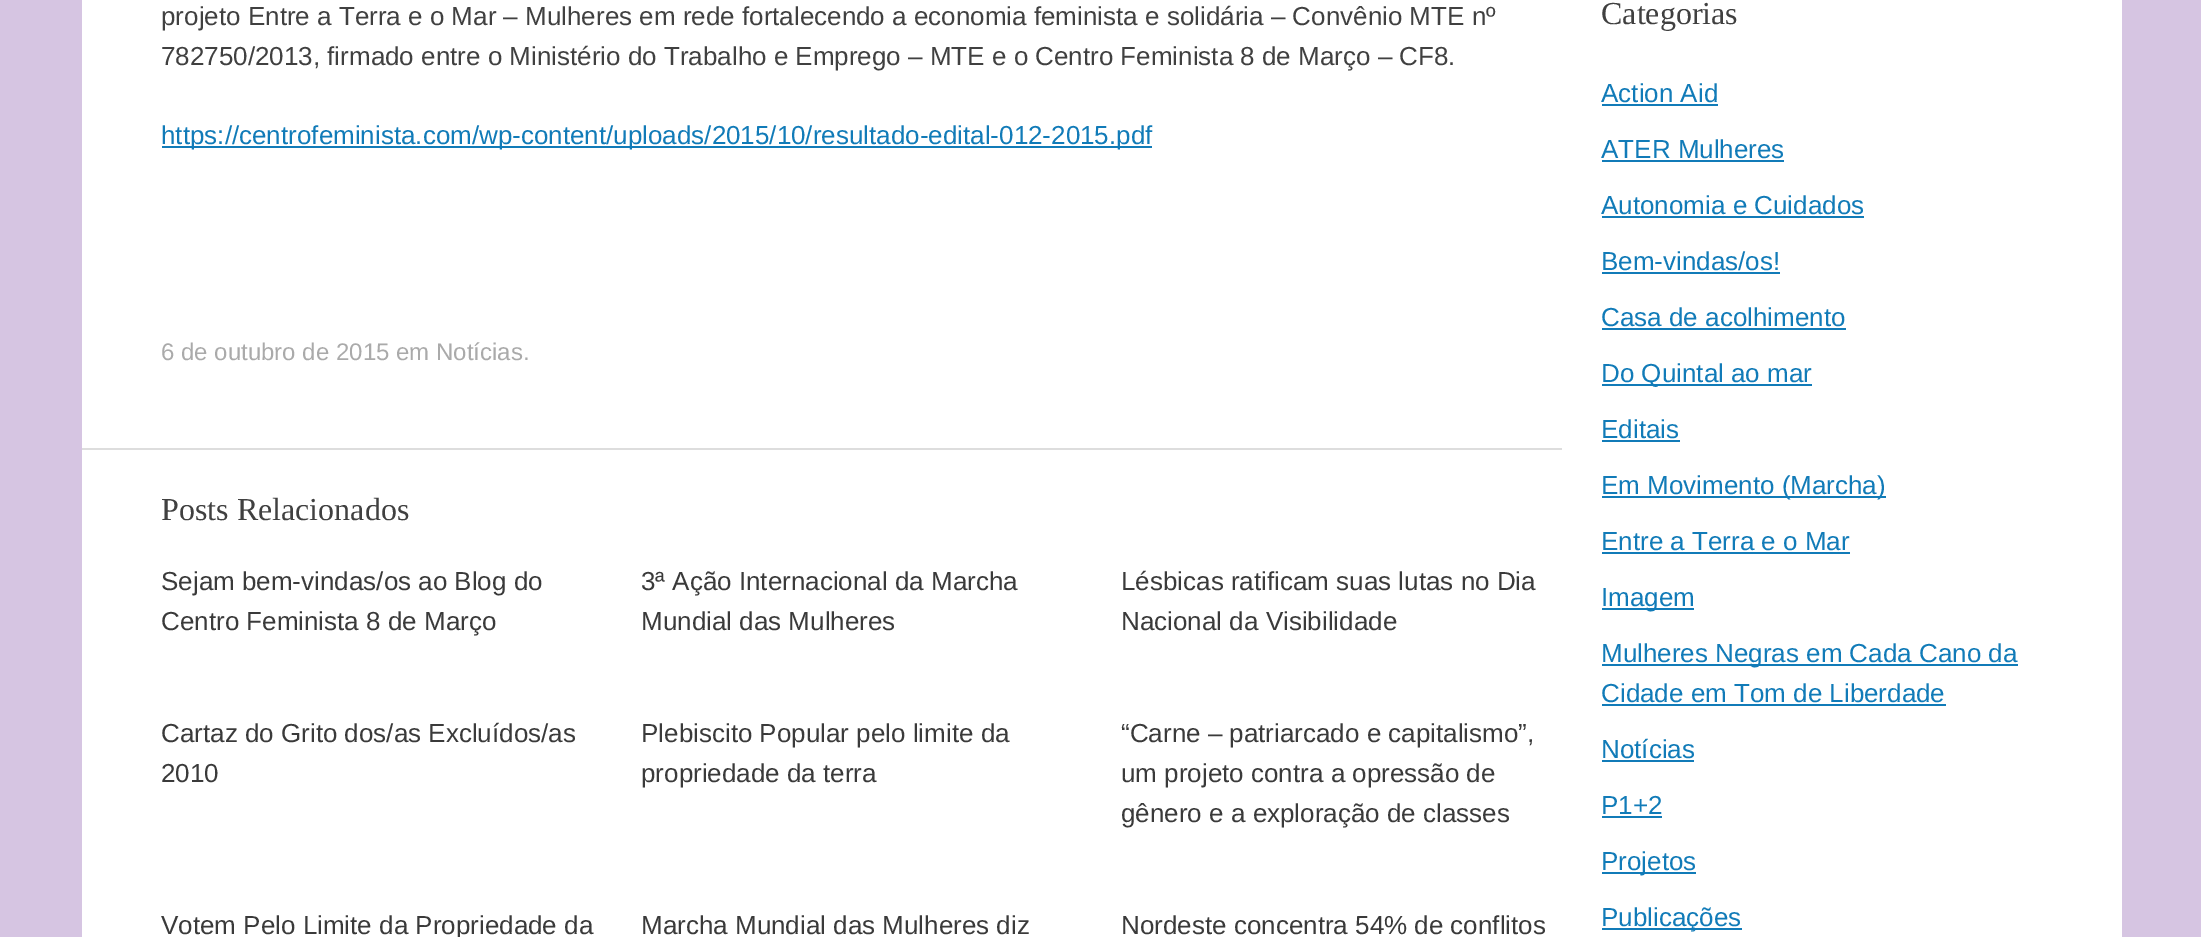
%!PS-Adobe-3.0
%%BoundingBox: 0 0 2201 937
%%LanguageLevel: 3
%%Pages: 1
%%EndComments
%%BeginProlog
/setink { dup -16 bitshift 255 div exch dup -8 bitshift 255 and 255 div exch 255 and 255 div setrgbcolor } def
/usefont { [ exch dup neg 0 0 3 -1 roll 0 0 ] selectfont } def
%%EndProlog
%%BeginSetup
<< /PageSize [2201 937] >> setpagedevice
%%EndSetup
%%Page: 1 1
0 937 translate 1 -1 scale
4 setmiterlimit
16#D6C5E2 setink
0 0 2201 937 rectfill
16#FFFFFF setink
82 0 2040 937 rectfill
16#DDDDDD setink
82 448 1480 2 rectfill
/LiberationSans-Regular 26 usefont
16#404040 setink
161 25 moveto (projeto Entre a Terra e o Mar – Mulheres em rede fortalecendo a economia feminista e solidária – Convênio MTE nº) show
161 65 moveto (782750/2013, firmado entre o Ministério do Trabalho e Emprego – MTE e o Centro Feminista 8 de Março – CF8.) show
16#117BB8 setink
162 146 990 2 rectfill
161 144 moveto (https://centrofeminista.com/wp-content/uploads/2015/10/resultado-edital-012-2015.pdf) show
/LiberationSans-Regular 24 usefont
16#AAAAAA setink
161 360 moveto (6 de outubro de 2015 em Notícias.) show
/LiberationSerif-Regular 32 usefont
16#404040 setink
161 520 moveto (Posts Relacionados) show
/LiberationSans-Regular 26 usefont
16#3A3A3A setink
[
    [(Sejam bem-vindas/os ao Blog do) 161 590]
    [(Centro Feminista 8 de Março) 161 630]
    [(3ª Ação Internacional da Marcha) 641 590]
    [(Mundial das Mulheres) 641 630]
    [(Lésbicas ratificam suas lutas no Dia) 1121 590]
    [(Nacional da Visibilidade) 1121 630]
    [(Cartaz do Grito dos/as Excluídos/as) 161 742]
    [(2010) 161 782]
    [(Plebiscito Popular pelo limite da) 641 742]
    [(propriedade da terra) 641 782]
    [(“Carne – patriarcado e capitalismo”,) 1121 742]
    [(um projeto contra a opressão de) 1121 782]
    [(gênero e a exploração de classes) 1121 822]
    [(Votem Pelo Limite da Propriedade da) 161 934]
    [(Marcha Mundial das Mulheres diz) 641 934]
    [(Nordeste concentra 54% de conflitos) 1121 934]
] { aload pop moveto show } forall
/LiberationSerif-Regular 32 usefont
16#404040 setink
1601 24 moveto (Categorias) show
/LiberationSans-Regular 26 usefont
16#117BB8 setink
1601 102 moveto (Action Aid) show
1602 104 116 2 rectfill
1601 158 moveto (ATER Mulheres) show
1602 160 182 2 rectfill
1601 214 moveto (Autonomia e Cuidados) show
1602 216 262 2 rectfill
1601 270 moveto (Bem-vindas/os!) show
1602 272 178 2 rectfill
1601 326 moveto (Casa de acolhimento) show
1602 328 244 2 rectfill
1602 384 210 2 rectfill
1601 382 moveto (Do Quintal ao mar) show
1601 438 moveto (Editais) show
1602 440 78 2 rectfill
1602 496 284 2 rectfill
1601 494 moveto (Em Movimento \(Marcha\)) show
1601 550 moveto (Entre a Terra e o Mar) show
1602 552 248 2 rectfill
1602 608 92 2 rectfill
1601 606 moveto (Imagem) show
1602 664 416 2 rectfill
1601 662 moveto (Mulheres Negras em Cada Cano da) show
1601 702 moveto (Cidade em Tom de Liberdade) show
1602 704 344 2 rectfill
1601 758 moveto (Notícias) show
1602 760 92 2 rectfill
1601 814 moveto (P1+2) show
1602 816 60 2 rectfill
1602 872 94 2 rectfill
1601 870 moveto (Projetos) show
1602 928 140 2 rectfill
1601 926 moveto (Publicações) show
showpage
%%EOF
